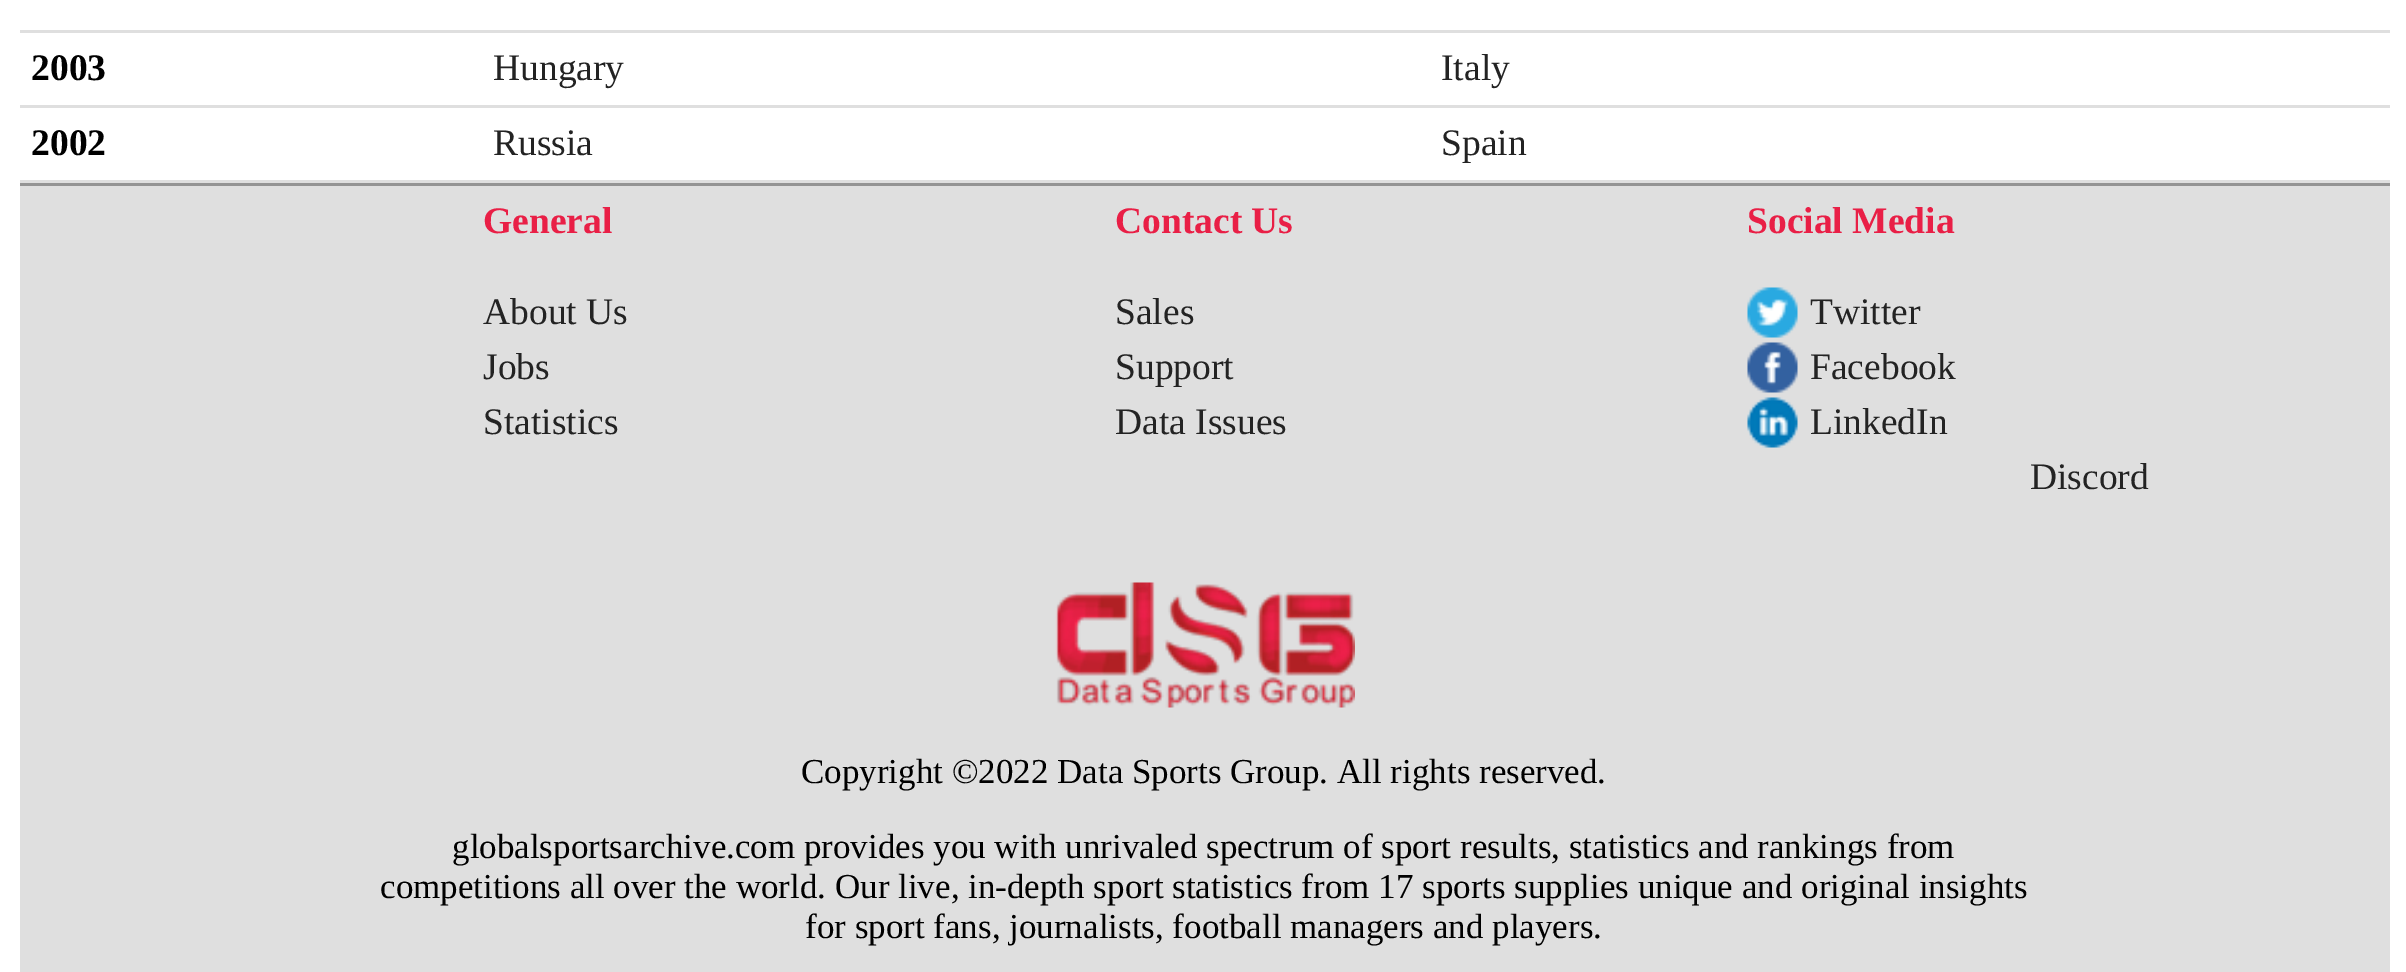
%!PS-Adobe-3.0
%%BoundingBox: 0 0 2406 972
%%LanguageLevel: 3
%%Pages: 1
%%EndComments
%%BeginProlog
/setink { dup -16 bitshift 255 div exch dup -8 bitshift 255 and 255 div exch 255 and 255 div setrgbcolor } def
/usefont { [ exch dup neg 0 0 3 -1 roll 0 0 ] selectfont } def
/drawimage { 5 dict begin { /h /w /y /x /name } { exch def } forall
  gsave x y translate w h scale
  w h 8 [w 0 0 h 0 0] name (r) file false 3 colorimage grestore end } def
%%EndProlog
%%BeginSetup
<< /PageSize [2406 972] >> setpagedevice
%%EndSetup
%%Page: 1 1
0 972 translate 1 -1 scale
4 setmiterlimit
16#FFFFFF setink
0 0 2406 972 rectfill
16#DFDFDF setink
20 30 2370 3 rectfill
20 105 2370 3 rectfill
/LiberationSerif-Bold 37.5 usefont
16#000000 setink
31 80 moveto (2003) show
/LiberationSerif-Regular 37.5 usefont
16#232323 setink
493 80 moveto (Hungary) show
1441 80 moveto (Italy) show
16#DFDFDF setink
20 180 2370 3 rectfill
/LiberationSerif-Bold 37.5 usefont
16#000000 setink
31 155 moveto (2002) show
/LiberationSerif-Regular 37.5 usefont
16#232323 setink
493 155 moveto (Russia) show
1441 155 moveto (Spain) show
16#DFDFDF setink
20 186 2370 786 rectfill
16#949494 setink
20 183 2370 3 rectfill
/LiberationSerif-Bold 37.5 usefont
16#E91F46 setink
[
    [(General) 483 233]
    [(Contact Us) 1115 233]
    [(Social Media) 1747 233]
] { aload pop moveto show } forall
/LiberationSerif-Regular 37.5 usefont
16#232323 setink
[
    [(About Us) 483 324]
    [(Jobs) 483 379]
    [(Statistics) 483 434]
    [(Sales) 1115 324]
    [(Support) 1115 379]
    [(Data Issues) 1115 434]
] { aload pop moveto show } forall
(img1.raw) 1747 287 51 51 drawimage
1810 324 moveto (Twitter) show
(img2.raw) 1747 342 51 51 drawimage
1810 379 moveto (Facebook) show
(img3.raw) 1747 397 51 51 drawimage
1810 434 moveto (LinkedIn) show
2030 489 moveto (Discord) show
(img4.raw) 1055 582 300 126 drawimage
/LiberationSerif-Regular 35 usefont
16#000000 setink
[
    [(Copyright ©2022 Data Sports Group. All rights reserved.) 801 783]
    [(globalsportsarchive.com provides you with unrivaled spectrum of sport results, statistics and rankings from) 452 858]
    [(competitions all over the world. Our live, in-depth sport statistics from 17 sports supplies unique and original insights) 380 898]
    [(for sport fans, journalists, football managers and players.) 805 938]
] { aload pop moveto show } forall
showpage
%%EOF
